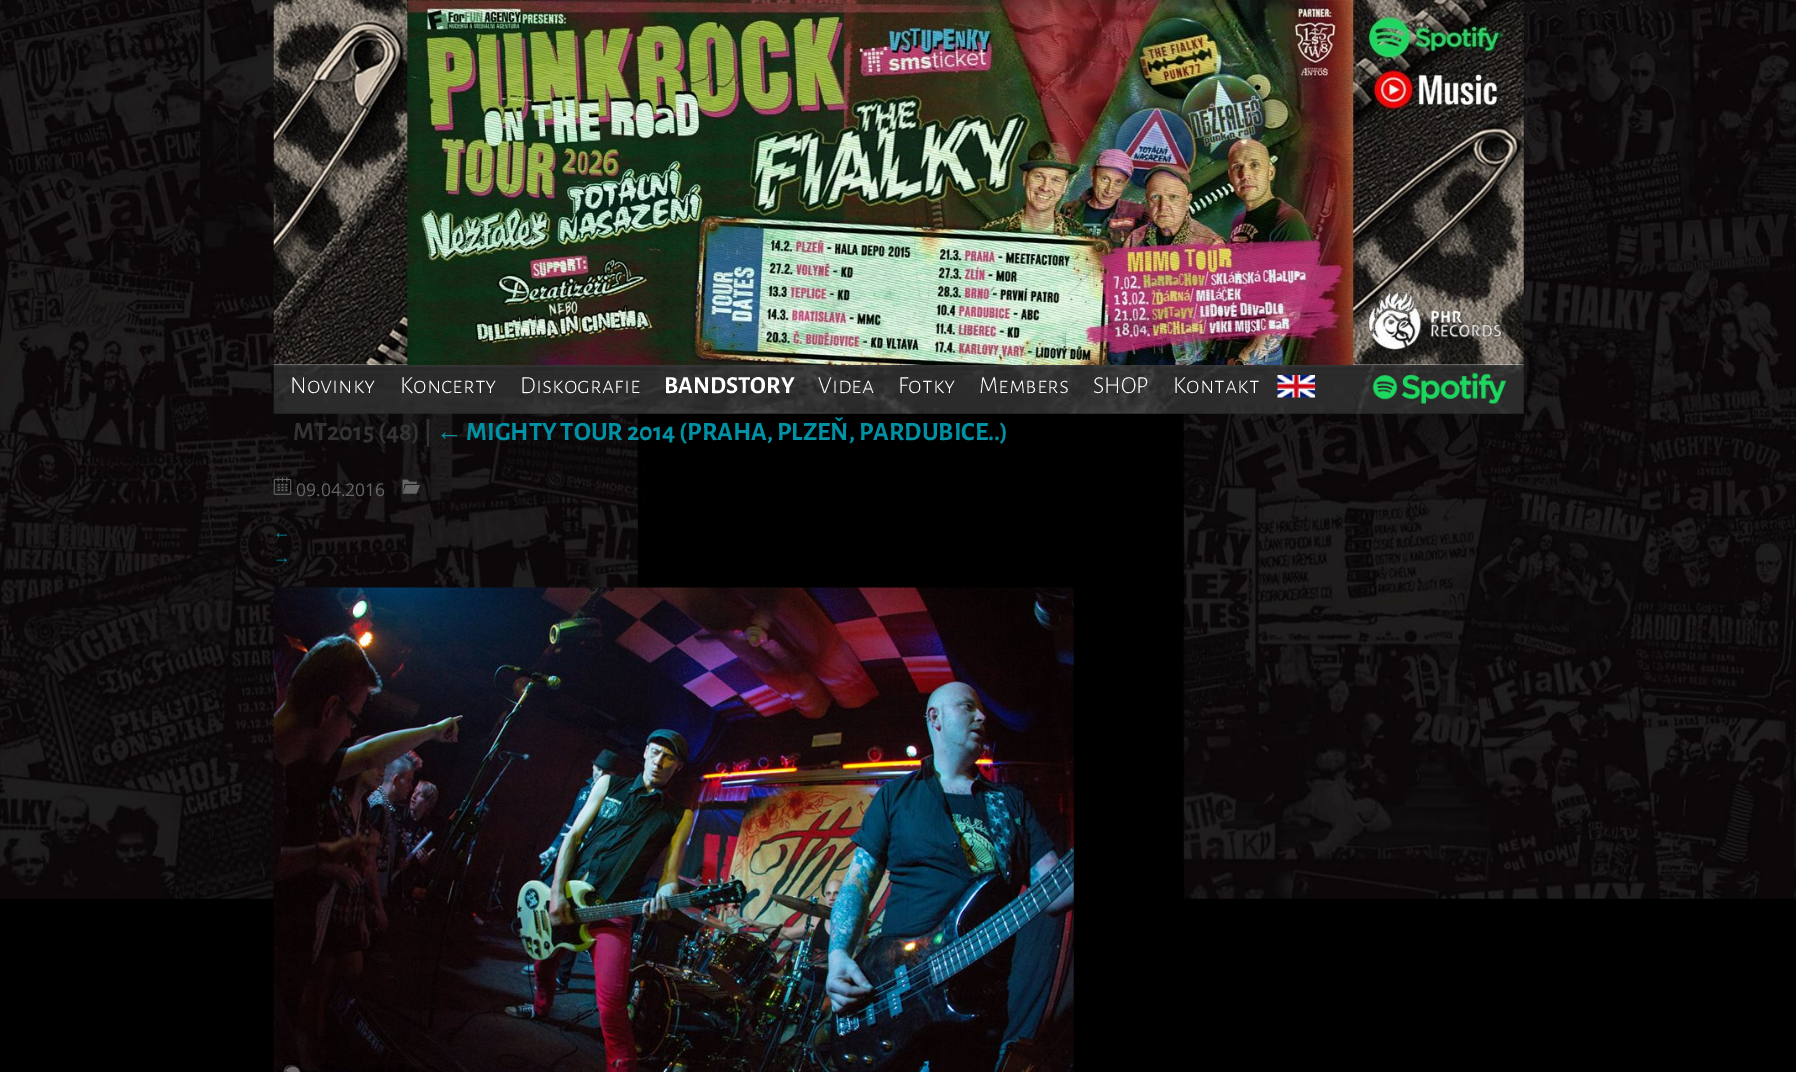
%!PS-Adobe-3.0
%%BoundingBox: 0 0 1796 1072
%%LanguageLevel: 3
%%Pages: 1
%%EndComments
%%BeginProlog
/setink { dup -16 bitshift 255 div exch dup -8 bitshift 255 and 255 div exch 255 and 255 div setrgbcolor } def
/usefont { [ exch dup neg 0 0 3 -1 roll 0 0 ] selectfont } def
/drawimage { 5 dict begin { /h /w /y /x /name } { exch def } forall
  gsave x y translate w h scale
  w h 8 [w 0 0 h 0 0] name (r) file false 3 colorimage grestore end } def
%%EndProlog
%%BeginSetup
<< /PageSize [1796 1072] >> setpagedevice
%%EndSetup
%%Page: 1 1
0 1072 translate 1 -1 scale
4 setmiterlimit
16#000000 setink
0 0 1796 1072 rectfill
(img1.raw) 0 0 1796 899 drawimage
(img2.raw) 273 0 1251 365 drawimage
(img6.raw) 274 413 1248 38 drawimage
(img3.raw) 273 365 1251 49 drawimage
/AlegreyaSansSC-Light 24.5 usefont
16#FFFFFF setink
[
    [(Novinky) 290 393]
    [(Koncerty) 400 393]
    [(Diskografie) 520 393]
] { aload pop moveto show } forall
/AlegreyaSansSC-Bold 24.5 usefont
664 393 moveto (BANDSTORY) show
/AlegreyaSansSC-Light 24.5 usefont
[
    [(Videa) 818 393]
    [(Fotky) 898 393]
    [(Members) 979 393]
    [(SHOP) 1093 393]
    [(Kontakt) 1173 393]
] { aload pop moveto show } forall
(img4.raw) 1277 375 38 23 drawimage
(img5.raw) 1372 372 135 32 drawimage
/AlegreyaSansSC-Bold 26.25 usefont
16#333333 setink
293 440 moveto (MT2015 \(48\) |) show
/LiberationSans-Bold 26.25 usefont
16#0091A5 setink
436 440 moveto (←) show
/AlegreyaSansSC-Bold 26.25 usefont
466 440 moveto (MIGHTY TOUR 2014 \(PRAHA, PLZEŇ, PARDUBICE..\)) show
(img7.raw) 273 477 19 18 drawimage
/OpenSans-Regular 17.5 usefont
16#666666 setink
296 496 moveto (09.04.2016) show
(img8.raw) 402 479 18 15 drawimage
/LiberationSans-Regular 17.5 usefont
16#0091A5 setink
273 538 moveto (←) show
273 563 moveto (→) show
(img9.raw) 273 587 801 485 drawimage
showpage
%%EOF
